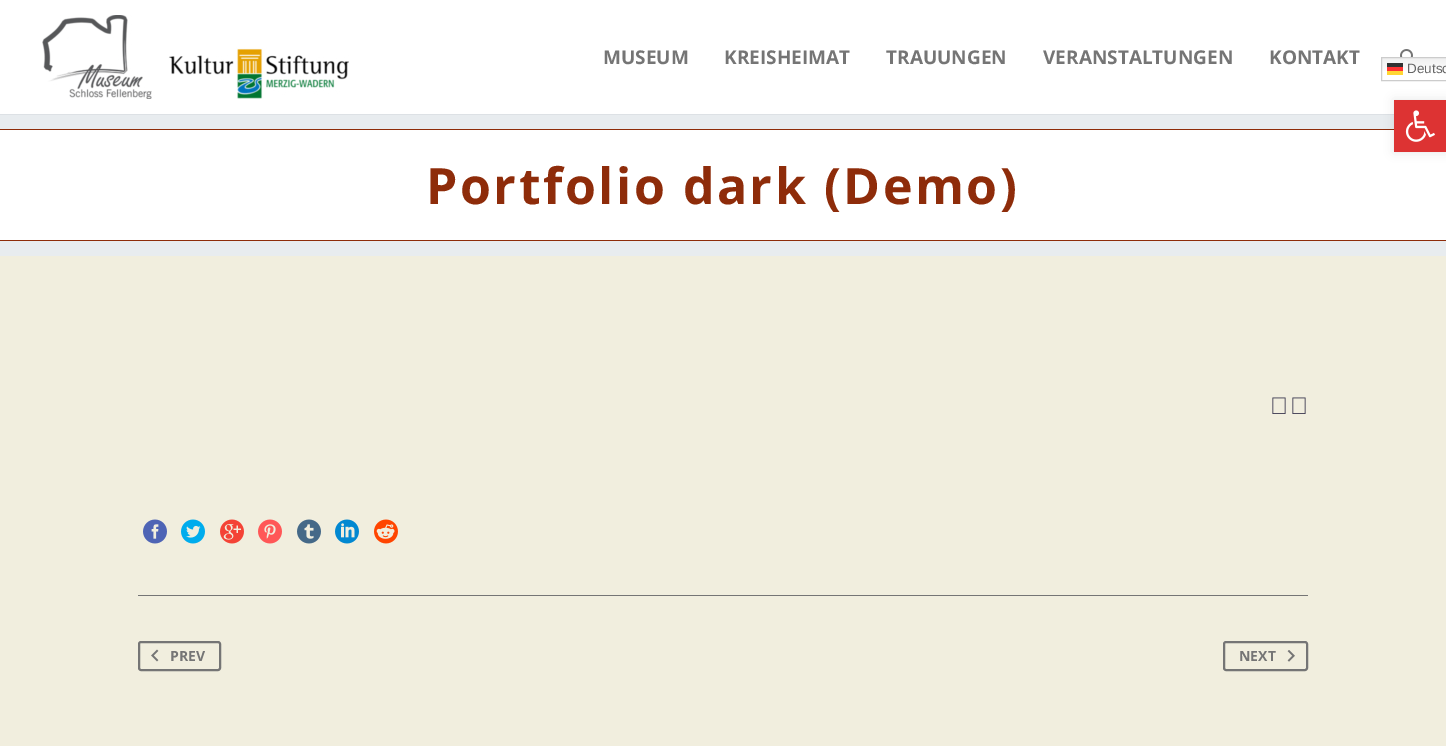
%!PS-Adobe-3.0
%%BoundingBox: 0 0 1446 746
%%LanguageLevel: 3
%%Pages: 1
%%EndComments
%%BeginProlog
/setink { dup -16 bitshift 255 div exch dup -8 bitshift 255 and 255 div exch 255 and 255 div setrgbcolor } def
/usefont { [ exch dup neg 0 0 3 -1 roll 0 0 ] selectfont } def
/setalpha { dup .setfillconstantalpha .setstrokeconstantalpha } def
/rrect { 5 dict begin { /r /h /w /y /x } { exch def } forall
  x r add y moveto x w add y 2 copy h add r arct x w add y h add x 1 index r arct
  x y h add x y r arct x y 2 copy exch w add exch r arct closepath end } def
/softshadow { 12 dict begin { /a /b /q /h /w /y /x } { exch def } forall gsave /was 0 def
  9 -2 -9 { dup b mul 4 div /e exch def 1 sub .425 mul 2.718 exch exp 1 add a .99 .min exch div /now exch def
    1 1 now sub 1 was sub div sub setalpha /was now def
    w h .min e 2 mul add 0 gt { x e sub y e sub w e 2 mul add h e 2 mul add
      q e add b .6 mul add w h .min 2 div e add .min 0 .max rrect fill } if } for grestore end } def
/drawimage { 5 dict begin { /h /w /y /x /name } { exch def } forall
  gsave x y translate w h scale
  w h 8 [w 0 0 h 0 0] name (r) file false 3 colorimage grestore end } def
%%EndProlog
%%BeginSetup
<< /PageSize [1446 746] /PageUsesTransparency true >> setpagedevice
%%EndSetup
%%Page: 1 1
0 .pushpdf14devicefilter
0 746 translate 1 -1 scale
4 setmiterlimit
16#E8ECEF setink
0 0 1446 746 rectfill
16#FFFFFF setink
0 0 1446 114 rectfill
gsave
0 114 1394 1 rectclip
16#384554 setink
0 0 1446 114 0 1 0.2 softshadow
grestore
(img1.raw) 42 15 307 84 drawimage
/OpenSans-Bold 19 usefont
16#757575 setink
[
    [(MUSEUM) 603 64]
    [(KREISHEIMAT) 724 64]
    [(TRAUUNGEN) 886 64]
    [(VERANSTALTUNGEN) 1043 64]
    [(KONTAKT) 1269 64]
] { aload pop moveto show } forall
(img2.raw) 1400 49 13 8 drawimage
gsave 1382 58 moveto 1446 58 lineto 1446 71 lineto 1382 71 lineto closepath clip newpath
<< /ShadingType 2 /ColorSpace /DeviceRGB /Coords [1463 57 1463 81] /Extend [true true] /Function << /FunctionType 3 /Domain [0 1] /Functions [<< /FunctionType 2 /Domain [0 1] /C0 [0.937 0.937 0.937] /C1 [1 1 1] /N 1 >> << /FunctionType 2 /Domain [0 1] /C0 [1 1 1] /C1 [1 1 1] /N 1 >>] /Bounds [0.7] /Encode [0 1 0 1] >> >> shfill grestore
gsave 1387 67 moveto 1403 67 lineto 1403 71 lineto 1387 71 lineto closepath clip newpath
<< /ShadingType 2 /ColorSpace /DeviceRGB /Coords [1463 57 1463 81] /Extend [true true] /Function << /FunctionType 3 /Domain [0 1] /Functions [<< /FunctionType 2 /Domain [0 1] /C0 [0.988 0.188 0.188] /C1 [1 0.2 0.2] /N 1 >> << /FunctionType 2 /Domain [0 1] /C0 [1 0.2 0.2] /C1 [1 0.2 0.2] /N 1 >>] /Bounds [0.7] /Encode [0 1 0 1] >> >> shfill grestore
gsave 1387 63 moveto 1403 63 lineto 1403 67 lineto 1387 67 lineto closepath clip newpath
<< /ShadingType 2 /ColorSpace /DeviceRGB /Coords [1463 57 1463 81] /Extend [true true] /Function << /FunctionType 3 /Domain [0 1] /Functions [<< /FunctionType 2 /Domain [0 1] /C0 [0.188 0.188 0.188] /C1 [0.2 0.2 0.2] /N 1 >> << /FunctionType 2 /Domain [0 1] /C0 [0.2 0.2 0.2] /C1 [0.2 0.2 0.2] /N 1 >>] /Bounds [0.7] /Encode [0 1 0 1] >> >> shfill grestore
16#CCCCCC setink
1381.5 57.5 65 23 rectstroke
16#FFD633 setink
1387 71 16 4 rectfill
/LiberationSans-Regular 13.5 usefont
16#666666 setink
1407 73 moveto (Deutsc) show
[
    [0 130 1446 110 16#FFFFFF]
    [0 129 1394 1 16#8E2C0A]
    [0 240 1446 1 16#8E2C0A]
] { aload pop setink rectfill } forall
/OpenSans-Bold 50 usefont
426 204 moveto 2.5 0 (Portfolio dark \(Demo\)) ashow
16#F1EEDE setink
0 256 1446 490 rectfill
(img3.raw) 1272 397 14 17 drawimage
(img3.raw) 1292 397 14 17 drawimage
(img4.raw) 143 519 24 25 drawimage
(img5.raw) 181 519 24 25 drawimage
(img6.raw) 220 519 24 25 drawimage
(img7.raw) 258 519 24 25 drawimage
(img8.raw) 297 519 24 25 drawimage
(img9.raw) 335 519 24 25 drawimage
(img10.raw) 374 519 24 25 drawimage
16#757575 setink
138 595 1170 1 rectfill
2 setlinewidth
139 642 81 28 2 rrect stroke
(img11.raw) 151 649 8 13 drawimage
/OpenSans-Bold 14 usefont
170 661 moveto (PREV) show
1224 642 83 28 2 rrect stroke
1239 661 moveto (NEXT) show
(img12.raw) 1287 650 8 12 drawimage
16#000000 setink
1394 100 52 52 0 5 0.1 softshadow
16#DD3333 setink
1394 100 52 52 rectfill
(img13.raw) 1405 110 30 32 drawimage
.poppdf14devicefilter showpage
%%EOF
